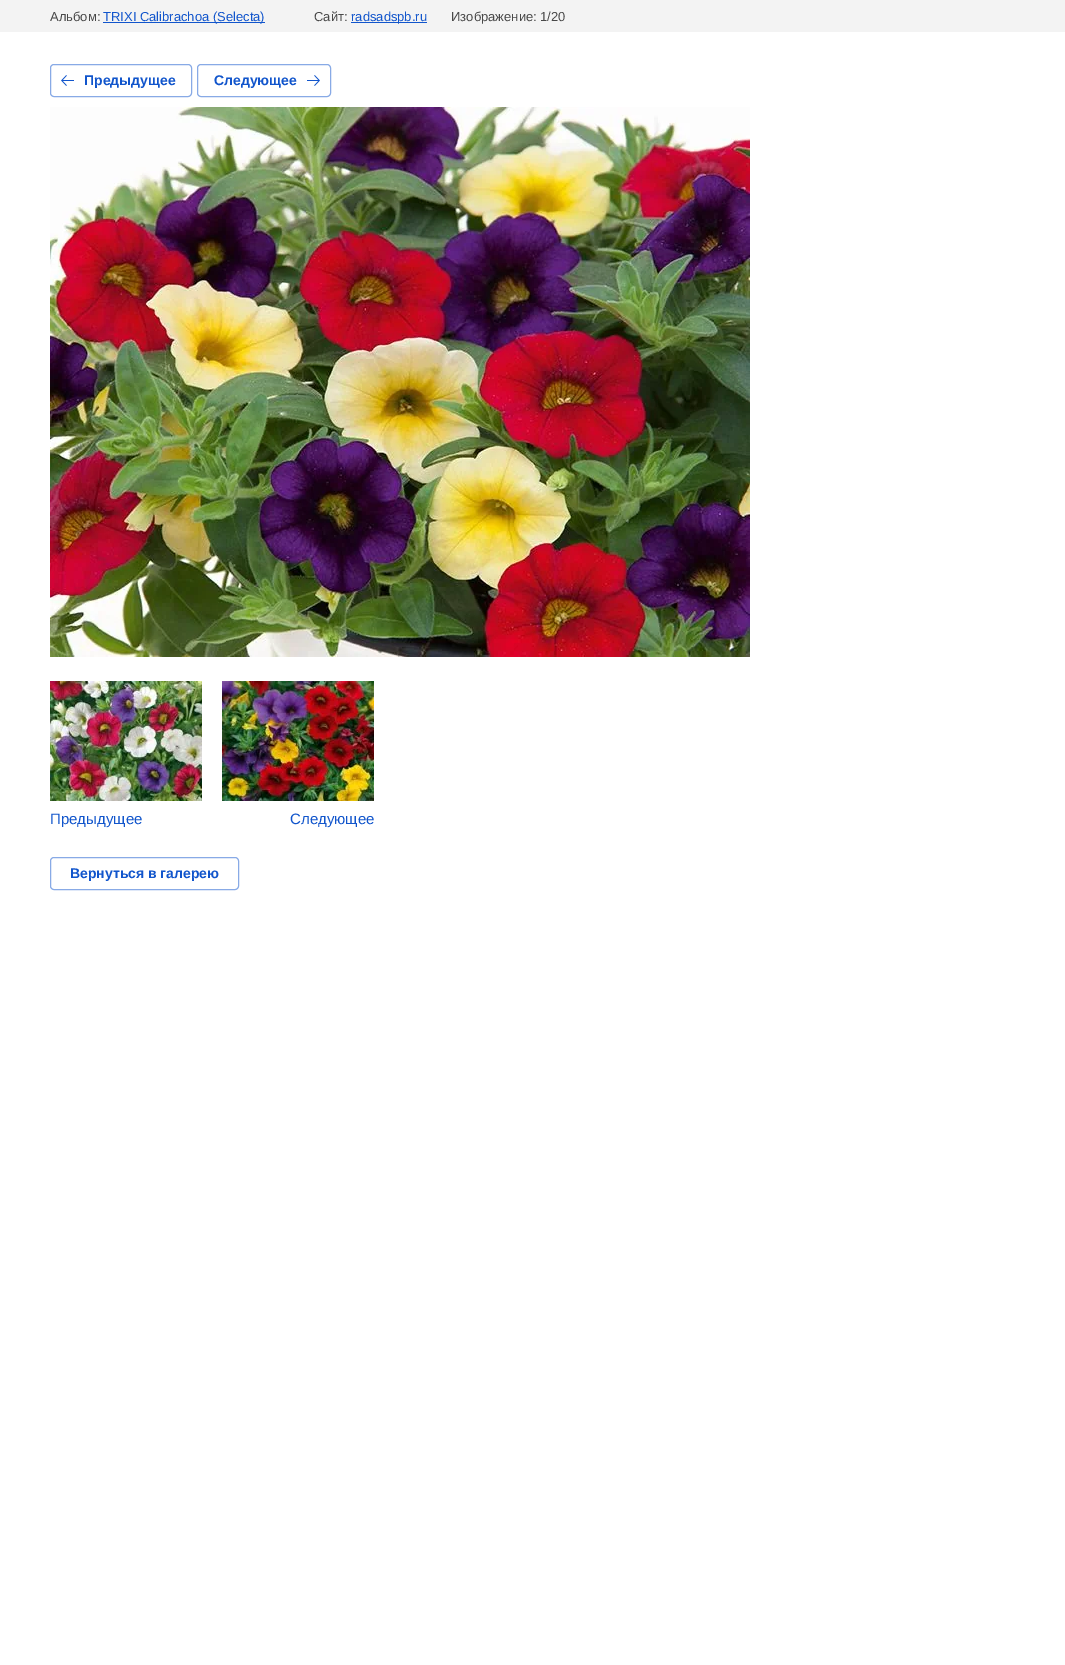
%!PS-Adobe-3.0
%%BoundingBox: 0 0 1065 1665
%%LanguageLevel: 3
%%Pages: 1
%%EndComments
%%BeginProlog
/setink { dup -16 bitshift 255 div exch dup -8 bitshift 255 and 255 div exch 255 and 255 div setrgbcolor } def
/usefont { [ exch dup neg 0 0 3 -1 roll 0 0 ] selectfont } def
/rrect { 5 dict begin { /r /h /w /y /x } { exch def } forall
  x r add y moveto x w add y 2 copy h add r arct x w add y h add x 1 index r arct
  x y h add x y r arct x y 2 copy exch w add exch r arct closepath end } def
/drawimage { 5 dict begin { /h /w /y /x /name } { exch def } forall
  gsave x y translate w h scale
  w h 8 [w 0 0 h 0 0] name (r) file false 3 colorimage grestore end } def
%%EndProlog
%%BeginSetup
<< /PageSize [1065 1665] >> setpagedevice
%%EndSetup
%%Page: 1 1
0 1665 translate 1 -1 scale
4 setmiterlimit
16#FFFFFF setink
0 0 1065 1665 rectfill
16#F3F3F3 setink
0 0 1065 32 rectfill
/LiberationSans-Regular 13 usefont
16#484848 setink
50 21 moveto (Альбом:) show
16#1155CC setink
103 22 162 1 rectfill
103 21 moveto (TRIXI Calibrachoa \(Selecta\)) show
16#484848 setink
314 21 moveto (Сайт:) show
16#1155CC setink
351 22 76 1 rectfill
351 21 moveto (radsadspb.ru) show
16#484848 setink
451 21 moveto (Изображение: 1/20) show
16#88AAE6 setink
50.5 64.5 141 32 3.5 rrect stroke
(img1.raw) 61 75 13 11 drawimage
/LiberationSans-Bold 14 usefont
16#1155CC setink
84 85 moveto (Предыдущее) show
16#88AAE6 setink
197.5 64.5 133 32 3.5 rrect stroke
16#1155CC setink
214 85 moveto (Следующее) show
(img2.raw) 307 75 13 11 drawimage
(img3.raw) 50 107 700 550 drawimage
(img4.raw) 50 681 152 120 drawimage
/LiberationSans-Regular 15 usefont
50 824 moveto (Предыдущее) show
(img5.raw) 222 681 152 120 drawimage
290 824 moveto (Следующее) show
16#88AAE6 setink
50.5 857.5 188 32 3.5 rrect stroke
/LiberationSans-Bold 14 usefont
16#1155CC setink
70 878 moveto (Вернуться в галерею) show
showpage
%%EOF
